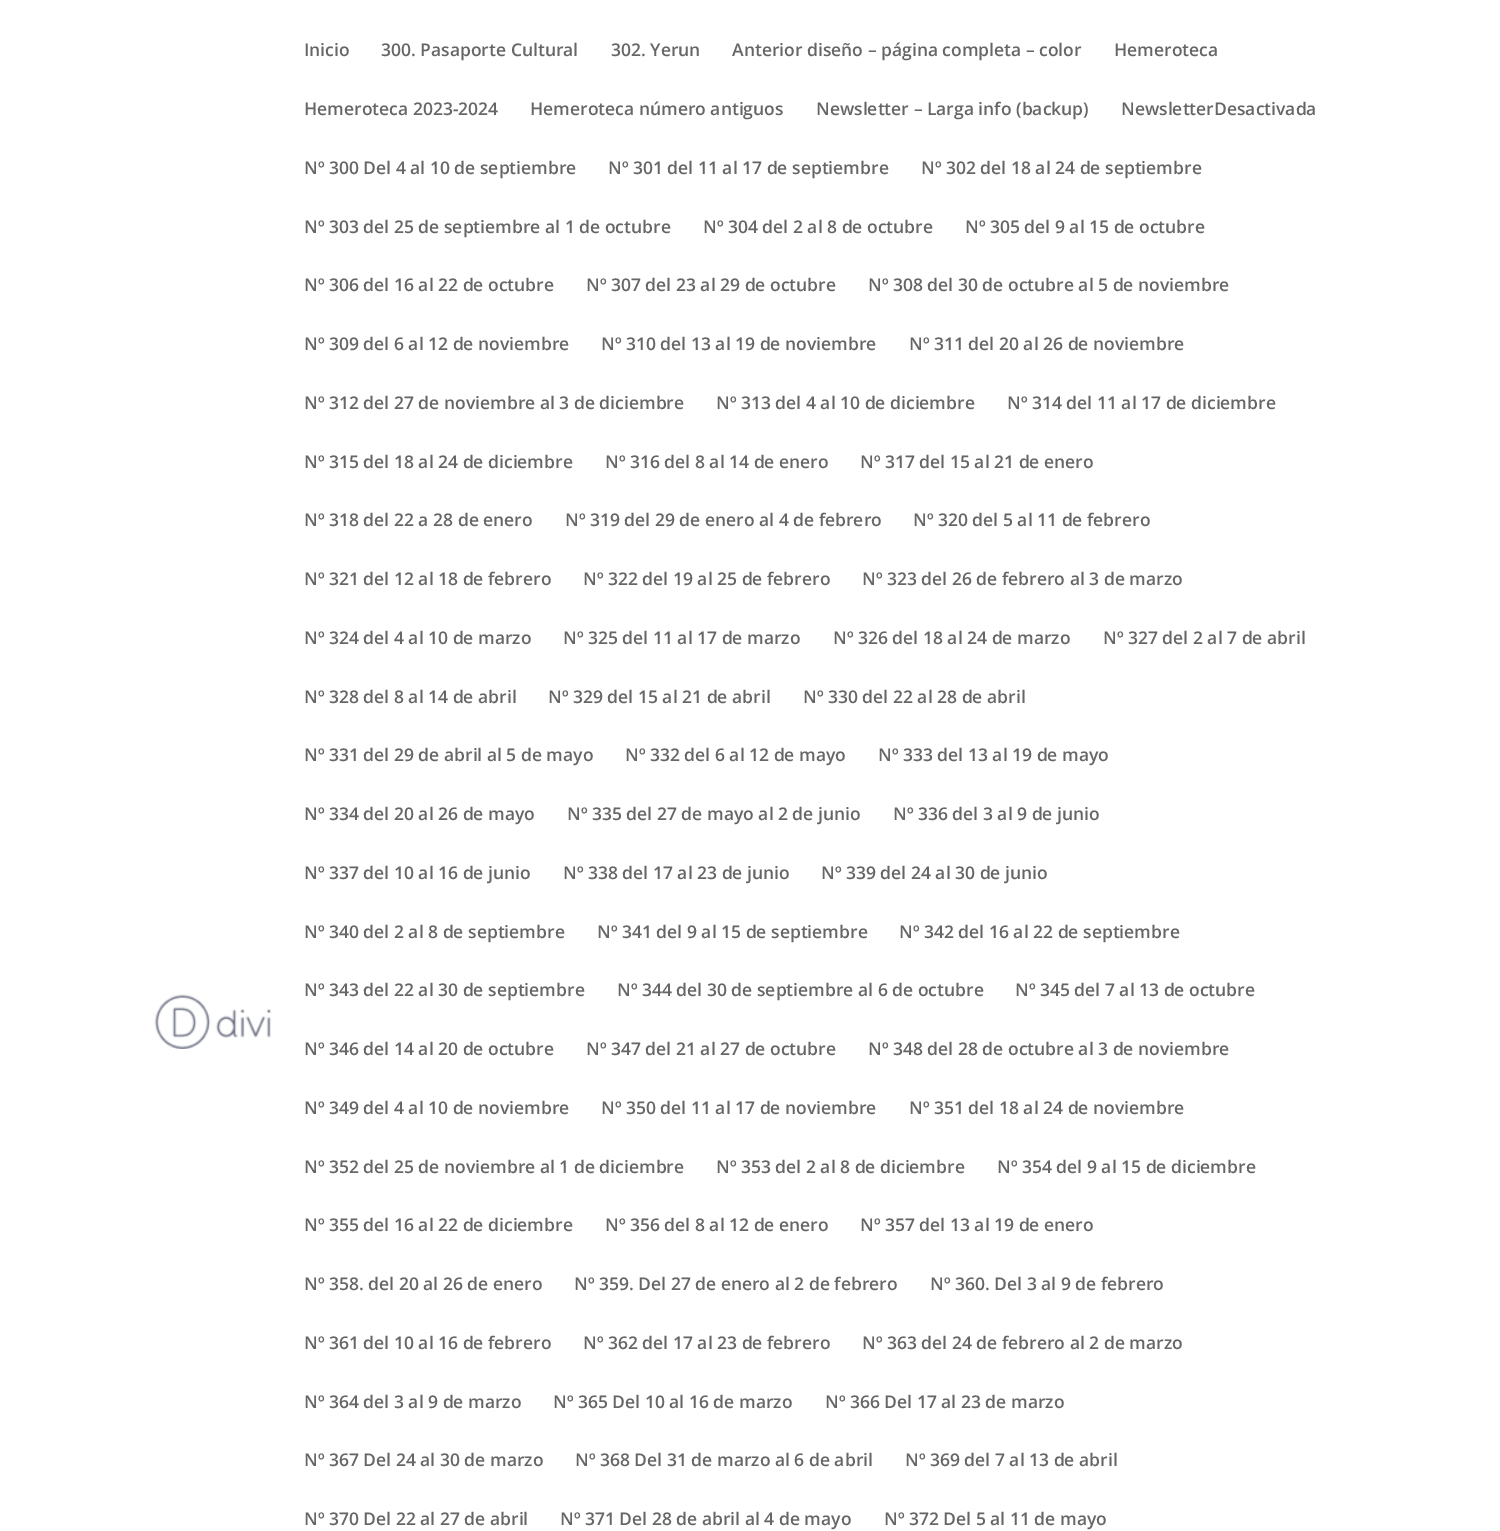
%!PS-Adobe-3.0
%%BoundingBox: 0 0 1500 1531
%%LanguageLevel: 3
%%Pages: 1
%%EndComments
%%BeginProlog
/setink { dup -16 bitshift 255 div exch dup -8 bitshift 255 and 255 div exch 255 and 255 div setrgbcolor } def
/usefont { [ exch dup neg 0 0 3 -1 roll 0 0 ] selectfont } def
/drawimage { 5 dict begin { /h /w /y /x /name } { exch def } forall
  gsave x y translate w h scale
  w h 8 [w 0 0 h 0 0] name (r) file false 3 colorimage grestore end } def
%%EndProlog
%%BeginSetup
<< /PageSize [1500 1531] >> setpagedevice
%%EndSetup
%%Page: 1 1
0 1531 translate 1 -1 scale
4 setmiterlimit
16#FFFFFF setink
0 0 1500 1531 rectfill
(img1.raw) 154 994 118 55 drawimage
/OpenSans-SemiBold 17.5 usefont
16#666666 setink
[
    [(Inicio) 304 56]
    [(300. Pasaporte Cultural) 381 56]
    [(302. Yerun) 611 56]
    [(Anterior diseño – página completa – color) 732 56]
    [(Hemeroteca) 1114 56]
    [(Hemeroteca 2023-2024) 304 115]
    [(Hemeroteca número antiguos) 530 115]
    [(Newsletter – Larga info \(backup\)) 816 115]
    [(NewsletterDesactivada) 1121 115]
    [(Nº 300 Del 4 al 10 de septiembre) 304 174]
    [(Nº 301 del 11 al 17 de septiembre) 608 174]
    [(Nº 302 del 18 al 24 de septiembre) 921 174]
    [(Nº 303 del 25 de septiembre al 1 de octubre) 304 233]
    [(Nº 304 del 2 al 8 de octubre) 703 233]
    [(Nº 305 del 9 al 15 de octubre) 965 233]
    [(Nº 306 del 16 al 22 de octubre) 304 291]
    [(Nº 307 del 23 al 29 de octubre) 586 291]
    [(Nº 308 del 30 de octubre al 5 de noviembre) 868 291]
    [(Nº 309 del 6 al 12 de noviembre) 304 350]
    [(Nº 310 del 13 al 19 de noviembre) 601 350]
    [(Nº 311 del 20 al 26 de noviembre) 909 350]
    [(Nº 312 del 27 de noviembre al 3 de diciembre) 304 409]
    [(Nº 313 del 4 al 10 de diciembre) 716 409]
    [(Nº 314 del 11 al 17 de diciembre) 1007 409]
    [(Nº 315 del 18 al 24 de diciembre) 304 468]
    [(Nº 316 del 8 al 14 de enero) 605 468]
    [(Nº 317 del 15 al 21 de enero) 860 468]
    [(Nº 318 del 22 a 28 de enero) 304 526]
    [(Nº 319 del 29 de enero al 4 de febrero) 565 526]
    [(Nº 320 del 5 al 11 de febrero) 913 526]
    [(Nº 321 del 12 al 18 de febrero) 304 585]
    [(Nº 322 del 19 al 25 de febrero) 583 585]
    [(Nº 323 del 26 de febrero al 3 de marzo) 862 585]
    [(Nº 324 del 4 al 10 de marzo) 304 644]
    [(Nº 325 del 11 al 17 de marzo) 563 644]
    [(Nº 326 del 18 al 24 de marzo) 833 644]
    [(Nº 327 del 2 al 7 de abril) 1103 644]
    [(Nº 328 del 8 al 14 de abril) 304 703]
    [(Nº 329 del 15 al 21 de abril) 548 703]
    [(Nº 330 del 22 al 28 de abril) 803 703]
    [(Nº 331 del 29 de abril al 5 de mayo) 304 761]
    [(Nº 332 del 6 al 12 de mayo) 625 761]
    [(Nº 333 del 13 al 19 de mayo) 878 761]
    [(Nº 334 del 20 al 26 de mayo) 304 820]
    [(Nº 335 del 27 de mayo al 2 de junio) 567 820]
    [(Nº 336 del 3 al 9 de junio) 893 820]
    [(Nº 337 del 10 al 16 de junio) 304 879]
    [(Nº 338 del 17 al 23 de junio) 563 879]
    [(Nº 339 del 24 al 30 de junio) 821 879]
    [(Nº 340 del 2 al 8 de septiembre) 304 938]
    [(Nº 341 del 9 al 15 de septiembre) 597 938]
    [(Nº 342 del 16 al 22 de septiembre) 899 938]
    [(Nº 343 del 22 al 30 de septiembre) 304 996]
    [(Nº 344 del 30 de septiembre al 6 de octubre) 617 996]
    [(Nº 345 del 7 al 13 de octubre) 1015 996]
    [(Nº 346 del 14 al 20 de octubre) 304 1055]
    [(Nº 347 del 21 al 27 de octubre) 586 1055]
    [(Nº 348 del 28 de octubre al 3 de noviembre) 868 1055]
    [(Nº 349 del 4 al 10 de noviembre) 304 1114]
    [(Nº 350 del 11 al 17 de noviembre) 601 1114]
    [(Nº 351 del 18 al 24 de noviembre) 909 1114]
    [(Nº 352 del 25 de noviembre al 1 de diciembre) 304 1173]
    [(Nº 353 del 2 al 8 de diciembre) 716 1173]
    [(Nº 354 del 9 al 15 de diciembre) 997 1173]
    [(Nº 355 del 16 al 22 de diciembre) 304 1231]
    [(Nº 356 del 8 al 12 de enero) 605 1231]
    [(Nº 357 del 13 al 19 de enero) 860 1231]
    [(Nº 358. del 20 al 26 de enero) 304 1290]
    [(Nº 359. Del 27 de enero al 2 de febrero) 574 1290]
    [(Nº 360. Del 3 al 9 de febrero) 930 1290]
    [(Nº 361 del 10 al 16 de febrero) 304 1349]
    [(Nº 362 del 17 al 23 de febrero) 583 1349]
    [(Nº 363 del 24 de febrero al 2 de marzo) 862 1349]
    [(Nº 364 del 3 al 9 de marzo) 304 1408]
    [(Nº 365 Del 10 al 16 de marzo) 553 1408]
    [(Nº 366 Del 17 al 23 de marzo) 825 1408]
    [(Nº 367 Del 24 al 30 de marzo) 304 1466]
    [(Nº 368 Del 31 de marzo al 6 de abril) 575 1466]
    [(Nº 369 del 7 al 13 de abril) 905 1466]
    [(Nº 370 Del 22 al 27 de abril) 304 1525]
    [(Nº 371 Del 28 de abril al 4 de mayo) 560 1525]
    [(Nº 372 Del 5 al 11 de mayo) 884 1525]
] { aload pop moveto show } forall
showpage
%%EOF
